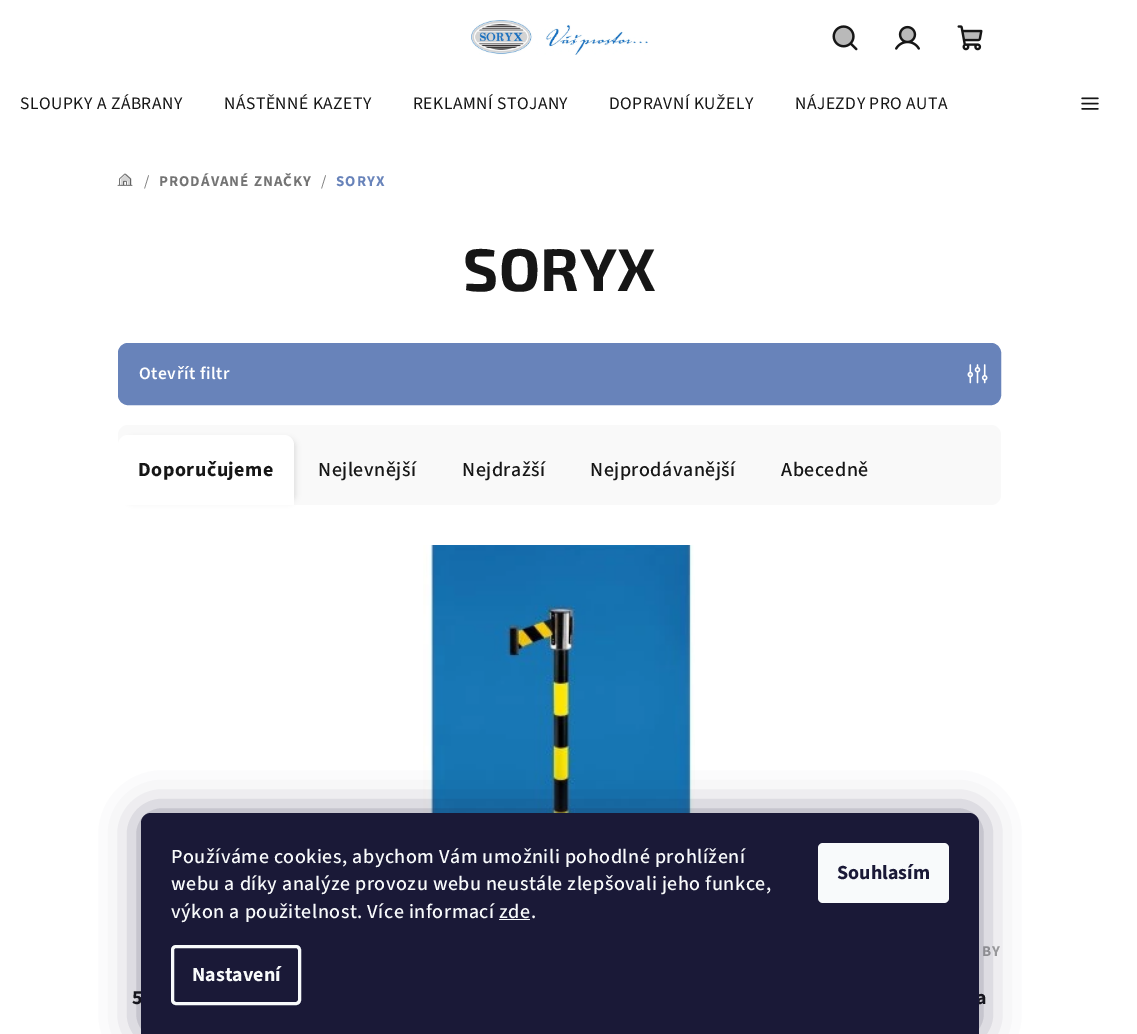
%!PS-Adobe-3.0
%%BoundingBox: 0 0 1137 1034
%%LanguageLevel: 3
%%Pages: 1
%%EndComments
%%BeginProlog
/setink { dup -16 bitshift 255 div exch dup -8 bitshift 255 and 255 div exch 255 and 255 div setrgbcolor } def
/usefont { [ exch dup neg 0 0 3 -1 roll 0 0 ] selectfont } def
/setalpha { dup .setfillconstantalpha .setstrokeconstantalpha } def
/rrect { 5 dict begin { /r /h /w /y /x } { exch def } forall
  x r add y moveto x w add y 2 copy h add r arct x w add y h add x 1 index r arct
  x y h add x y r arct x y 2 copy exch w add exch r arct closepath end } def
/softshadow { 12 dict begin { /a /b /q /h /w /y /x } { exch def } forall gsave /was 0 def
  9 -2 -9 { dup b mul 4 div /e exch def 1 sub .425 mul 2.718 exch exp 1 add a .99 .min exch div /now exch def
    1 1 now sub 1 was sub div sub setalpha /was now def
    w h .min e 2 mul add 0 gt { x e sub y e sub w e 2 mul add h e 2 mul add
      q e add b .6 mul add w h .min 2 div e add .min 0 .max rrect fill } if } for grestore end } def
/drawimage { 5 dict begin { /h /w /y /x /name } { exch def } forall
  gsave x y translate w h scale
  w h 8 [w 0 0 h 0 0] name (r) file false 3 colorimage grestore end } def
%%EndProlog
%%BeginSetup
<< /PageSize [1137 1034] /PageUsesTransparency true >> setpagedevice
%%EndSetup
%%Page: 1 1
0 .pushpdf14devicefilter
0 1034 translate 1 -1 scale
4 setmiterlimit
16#FFFFFF setink
0 0 1137 1034 rectfill
(img1.raw) 471 20 177 35 drawimage
(img2.raw) 832 25 26 26 drawimage
0.3 setalpha
16#161616 setink
843.5 46.5 moveto 856.5 46.5 856.5 26.5 843.5 26.5 curveto 830.5 26.5 830.5 46.5 843.5 46.5 curveto closepath fill
1 setalpha
(img3.raw) 895 25 25 25 drawimage
0.3 setalpha
907.5 42 moveto 917 42 917.5 27 907.5 27 curveto 897.5 27 898 42 907.5 42 curveto closepath fill
1 setalpha
(img4.raw) 957 25 26 26 drawimage
0.3 setalpha
963 32 17 7 rectfill
/SourceSans3-Regular 17.5 usefont
1 setalpha
20 109 moveto 0.5 0 (SLOUPKY A ZÁBRANY) ashow
224 109 moveto 0.5 0 (NÁSTĚNNÉ KAZETY) ashow
413 109 moveto 0.5 0 (REKLAMNÍ STOJANY) ashow
609 109 moveto 0.5 0 (DOPRAVNÍ KUŽELY) ashow
795 109 moveto 0.5 0 (NÁJEZDY PRO AUTA) ashow
(img5.raw) 1081 97 18 13 drawimage
(img6.raw) 117 173 16 13 drawimage
(img7.raw) 120 174 12 12 drawimage
/SourceSans3-Regular 15 usefont
16#747474 setink
144 186 moveto 1 0 (/) ashow
/SourceSans3-Bold 15 usefont
159 186 moveto 1 0 (PRODÁVANÉ ZNAČKY) ashow
/SourceSans3-Regular 15 usefont
321 186 moveto 1 0 (/) ashow
/SourceSans3-Bold 15 usefont
16#6883BA setink
336 186 moveto 1 0 (SORYX) ashow
/Exo2-Bold 60 usefont
16#161616 setink
463 291 moveto 0.5 0 (SORYX) ashow
16#6883BA setink
118.5 343.5 882 61 9.5 rrect gsave fill grestore
stroke
/SourceSans3-SemiBold 17.5 usefont
16#FFFFFF setink
139 379 moveto 0.5 0 (Otevřít filtr) ashow
(img8.raw) 967 364 21 20 drawimage
0.3 setalpha
969 373 3 3 rectfill
1 setalpha
16#F9F9F9 setink
118 425 883 80 10 rrect fill
16#000000 setink
125 438 171 65 8 2.5 0.09 softshadow
16#FFFFFF setink
128 435 moveto 284 435 lineto 289.5 435 294 439.5 294 445 curveto 294 505 lineto 118 505 lineto 118 445 lineto 118 439.5 122.5 435 128 435 curveto closepath fill
/SourceSans3-Bold 20 usefont
16#161616 setink
138 476 moveto 0.5 0 (Doporučujeme) ashow
/SourceSans3-Medium 20 usefont
318 476 moveto 0.5 0 (Nejlevnější) ashow
462 476 moveto 0.5 0 (Nejdražší) ashow
590 476 moveto 0.5 0 (Nejprodávanější) ashow
781 476 moveto 0.5 0 (Abecedně) ashow
(img9.raw) 423 545 272 268 drawimage
/SourceSans3-Bold 15 usefont
16#A2A2A2 setink
982 956 moveto 1 0 (BY) ashow
/SourceSans3-Bold 20 usefont
16#161616 setink
132 1004 moveto 0.5 0 (5) ashow
976 1004 moveto 0.5 0 (a) ashow
16#1B1939 setink
141 813 838 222 10 19 0.5 softshadow
16#1A1937 setink
151 813 moveto 969 813 lineto 974.5 813 979 817.5 979 823 curveto 979 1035 lineto 141 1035 lineto 141 823 lineto 141 817.5 145.5 813 151 813 curveto closepath fill
/SourceSans3-Medium 20 usefont
16#F8FAFB setink
171 863 moveto 0.5 0 (Používáme cookies, abychom Vám umožnili pohodlné prohlížení) ashow
171 890 moveto 0.5 0 (webu a díky analýze provozu webu neustále zlepšovali jeho funkce,) ashow
171 918 moveto 0.5 0 (výkon a použitelnost. Více informací zde.) ashow
499 919 31 1 rectfill
3 setlinewidth
172.5 946.5 127 57 3.5 rrect stroke
/SourceSans3-Bold 20 usefont
192 981 moveto (Nastavení) show
818 843 131 60 5 rrect fill
16#1A1937 setink
837 879 moveto (Souhlasím) show
.poppdf14devicefilter showpage
%%EOF
